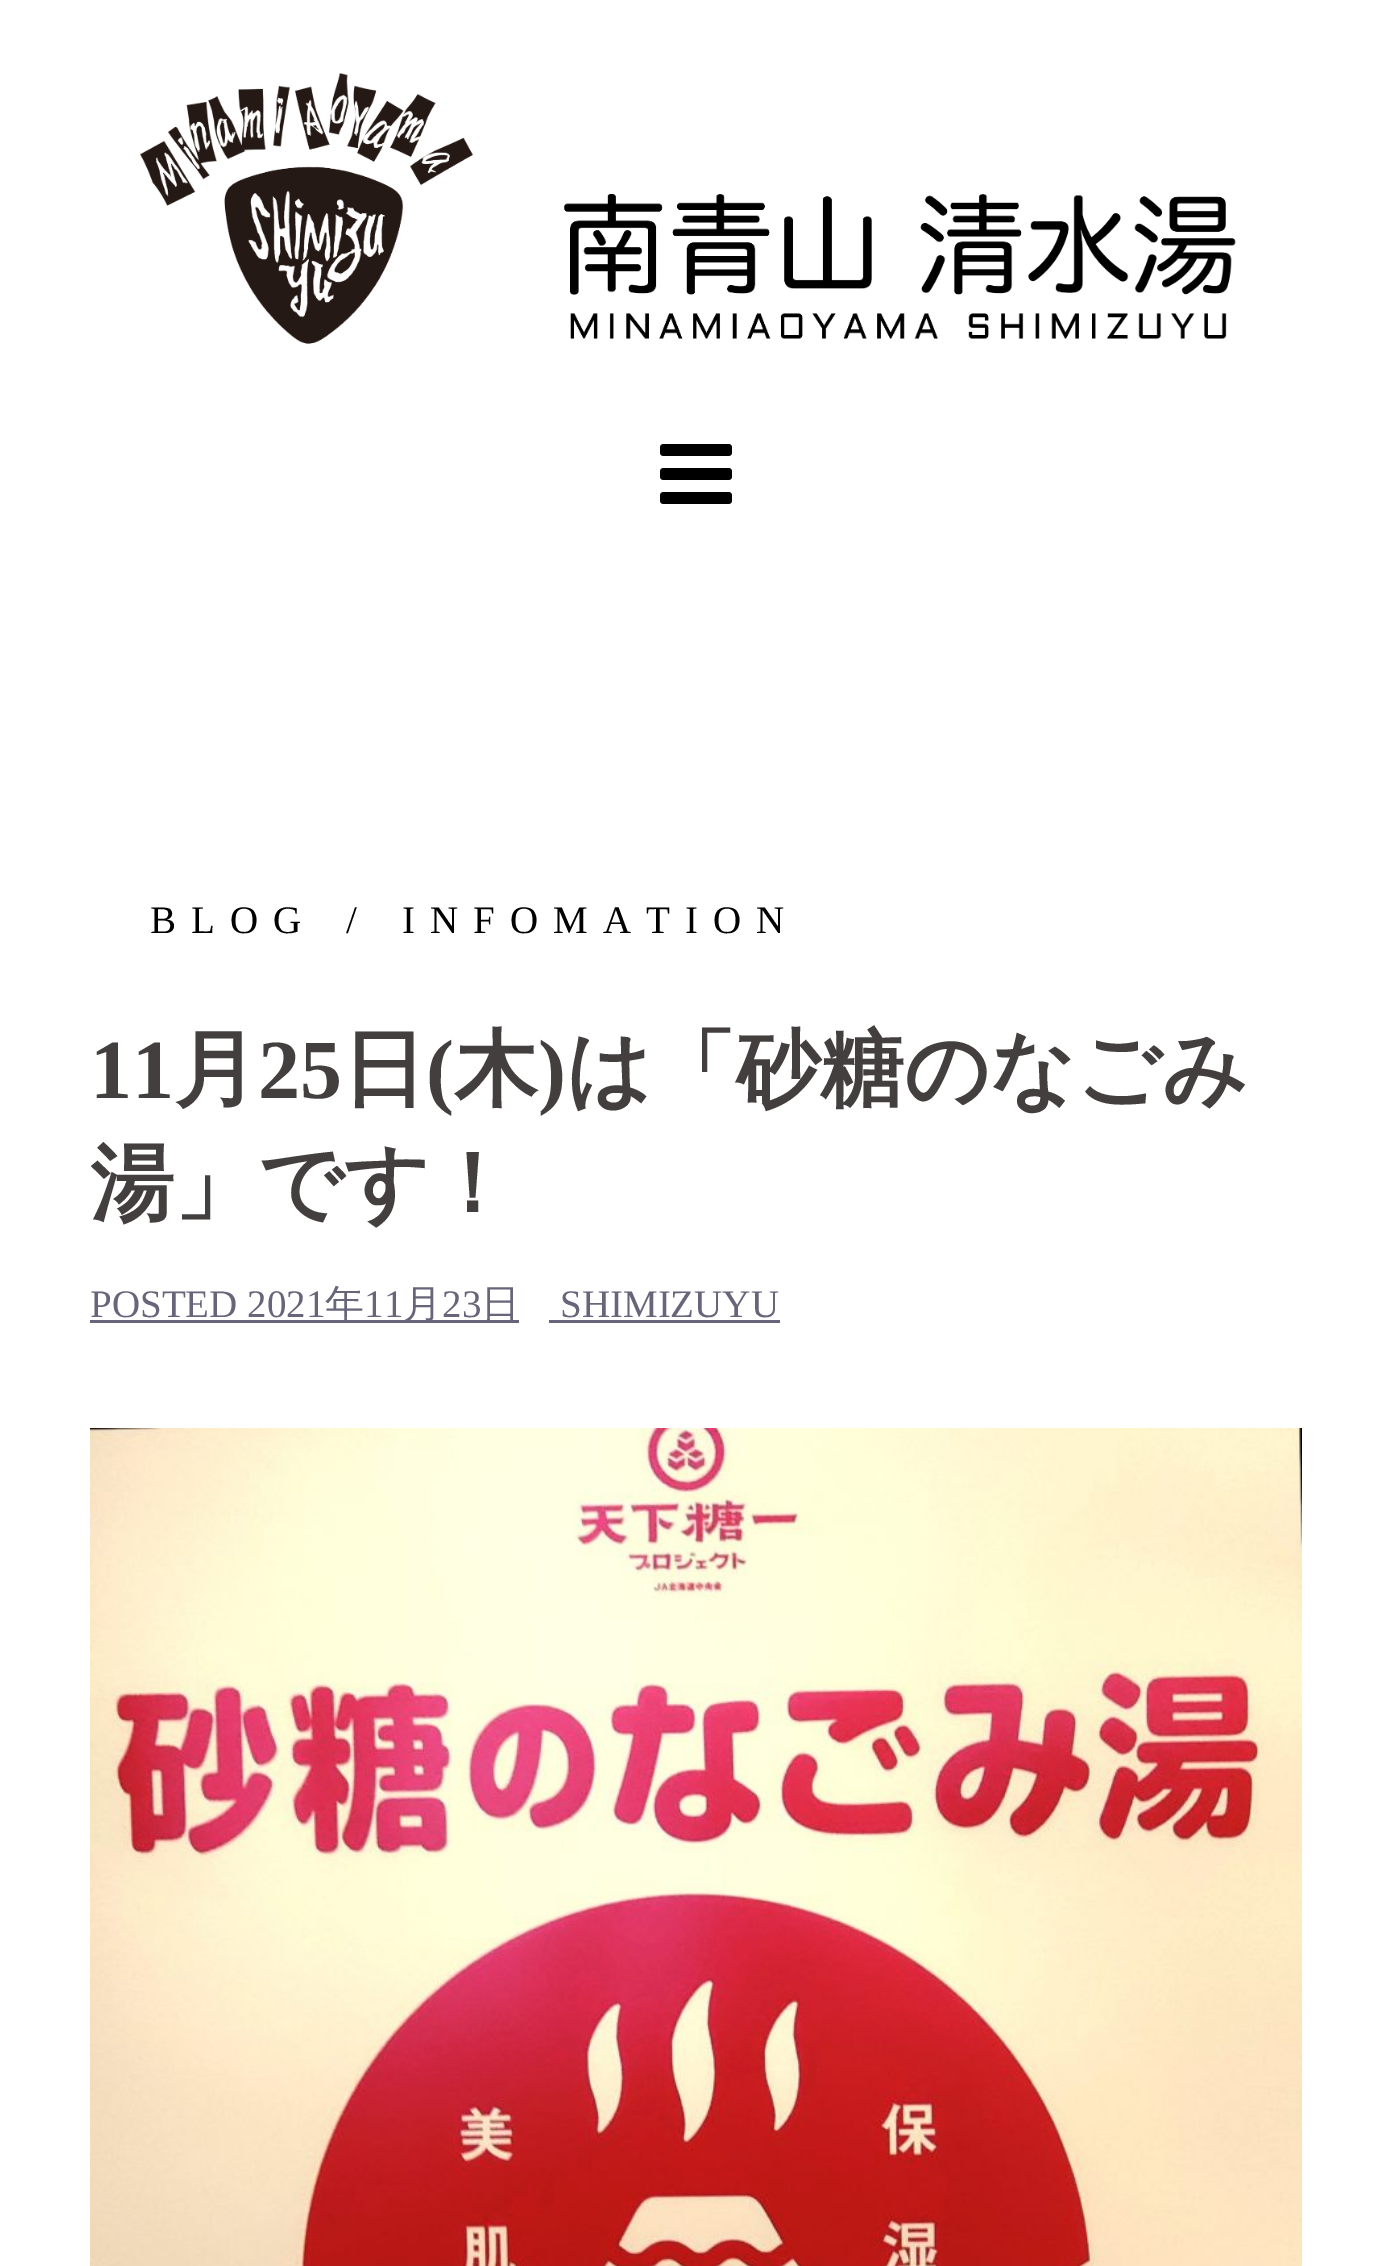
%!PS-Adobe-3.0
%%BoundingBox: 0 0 1391 2266
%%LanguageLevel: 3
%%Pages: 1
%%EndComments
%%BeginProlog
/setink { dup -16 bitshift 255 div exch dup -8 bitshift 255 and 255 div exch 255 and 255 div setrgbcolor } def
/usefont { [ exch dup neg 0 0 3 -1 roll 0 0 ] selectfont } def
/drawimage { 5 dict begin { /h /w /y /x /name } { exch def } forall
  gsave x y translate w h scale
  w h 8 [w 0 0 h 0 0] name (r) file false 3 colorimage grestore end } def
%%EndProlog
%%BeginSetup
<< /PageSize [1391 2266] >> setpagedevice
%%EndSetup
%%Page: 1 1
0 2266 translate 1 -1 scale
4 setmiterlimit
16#FFFFFF setink
0 0 1391 2266 rectfill
(img1.raw) 139 73 1097 271 drawimage
(img2.raw) 660 444 72 60 drawimage
/LiberationSerif-Regular 39 usefont
16#000000 setink
150 933 moveto 15 0 (BLOG) ashow
346 933 moveto 15 0 (/) ashow
402 933 moveto 15 0 (INFOMATION) ashow
/LiberationSerif-Bold 84 usefont
16#443F3F setink
90 1098 moveto (11) show
/WenQuanYiZenHei-Bold 84 usefont
174 1098 moveto (月) show
/LiberationSerif-Bold 84 usefont
258 1098 moveto (25) show
/WenQuanYiZenHei-Bold 84 usefont
342 1098 moveto (日) show
/LiberationSerif-Bold 84 usefont
426 1098 moveto (\() show
/WenQuanYiZenHei-Bold 84 usefont
454 1098 moveto (木) show
/LiberationSerif-Bold 84 usefont
538 1098 moveto (\)) show
/WenQuanYiZenHei-Bold 84 usefont
566 1098 moveto (は「砂糖のなごみ) show
90 1212 moveto (湯」です！) show
/LiberationSerif-Regular 39 usefont
16#68647A setink
90 1317 moveto (POSTED 2021) show
90 1320 429 3 rectfill
/WenQuanYiZenHei-Medium 39 usefont
325 1317 moveto (年) show
/LiberationSerif-Regular 39 usefont
364 1317 moveto (11) show
/WenQuanYiZenHei-Medium 39 usefont
403 1317 moveto (月) show
/LiberationSerif-Regular 39 usefont
442 1317 moveto (23) show
/WenQuanYiZenHei-Medium 39 usefont
481 1317 moveto (日) show
/LiberationSerif-Regular 39 usefont
560 1317 moveto (SHIMIZUYU) show
549 1320 231 3 rectfill
(img3.raw) 90 1428 1212 838 drawimage
showpage
%%EOF
